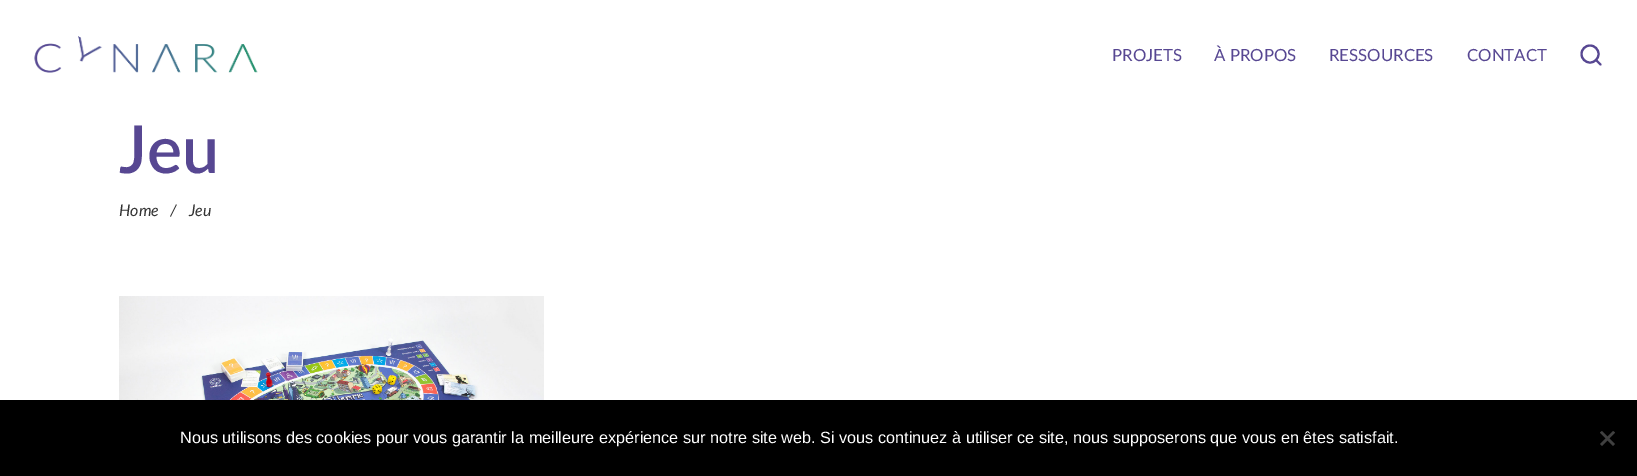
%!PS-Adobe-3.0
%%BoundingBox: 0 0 1637 476
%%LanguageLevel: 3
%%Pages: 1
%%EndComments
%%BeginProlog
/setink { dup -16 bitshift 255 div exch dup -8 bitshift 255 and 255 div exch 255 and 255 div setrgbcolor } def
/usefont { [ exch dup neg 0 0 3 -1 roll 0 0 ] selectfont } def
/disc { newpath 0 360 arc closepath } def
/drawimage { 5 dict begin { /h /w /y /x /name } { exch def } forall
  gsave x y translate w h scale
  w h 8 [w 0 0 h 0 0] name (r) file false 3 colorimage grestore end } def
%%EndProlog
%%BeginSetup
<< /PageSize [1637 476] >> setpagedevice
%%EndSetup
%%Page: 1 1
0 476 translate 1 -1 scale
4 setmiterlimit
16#FFFFFF setink
0 0 1637 476 rectfill
(img1.raw) 34 36 224 37 drawimage
/Lato-Regular 16.75 usefont
16#574792 setink
[
    [(PROJETS) 1112 61]
    [(À PROPOS) 1214 61]
    [(RESSOURCES) 1329 61]
    [(CONTACT) 1467 61]
] { aload pop moveto show } forall
2.1 setlinewidth
1590 54 8.5 disc stroke
1 setlinecap
1 setlinejoin
1600.5 64.5 moveto 1596 60 lineto stroke
/Lato-SemiBold 66 usefont
119 173 moveto (Jeu) show
/Lato-Italic 16 usefont
16#333333 setink
[
    [(Home) 119 216]
    [(/) 170 216]
    [(Jeu) 189 216]
] { aload pop moveto show } forall
(img2.raw) 119 296 425 104 drawimage
16#000000 setink
0 400 1637 76 rectfill
/LiberationSans-Regular 16.25 usefont
16#FFFFFF setink
180 443 moveto (Nous utilisons des cookies pour vous garantir la meilleure expérience sur notre site web. Si vous continuez à utiliser ce site, nous supposerons que vous en êtes satisfait.) show
16#404040 setink
1613 431 moveto 1615 432.5 lineto 1602 446 lineto 1600 444 lineto closepath fill
1600 432.5 moveto 1602 431 lineto 1615 444 lineto 1613 446 lineto closepath fill
showpage
%%EOF
